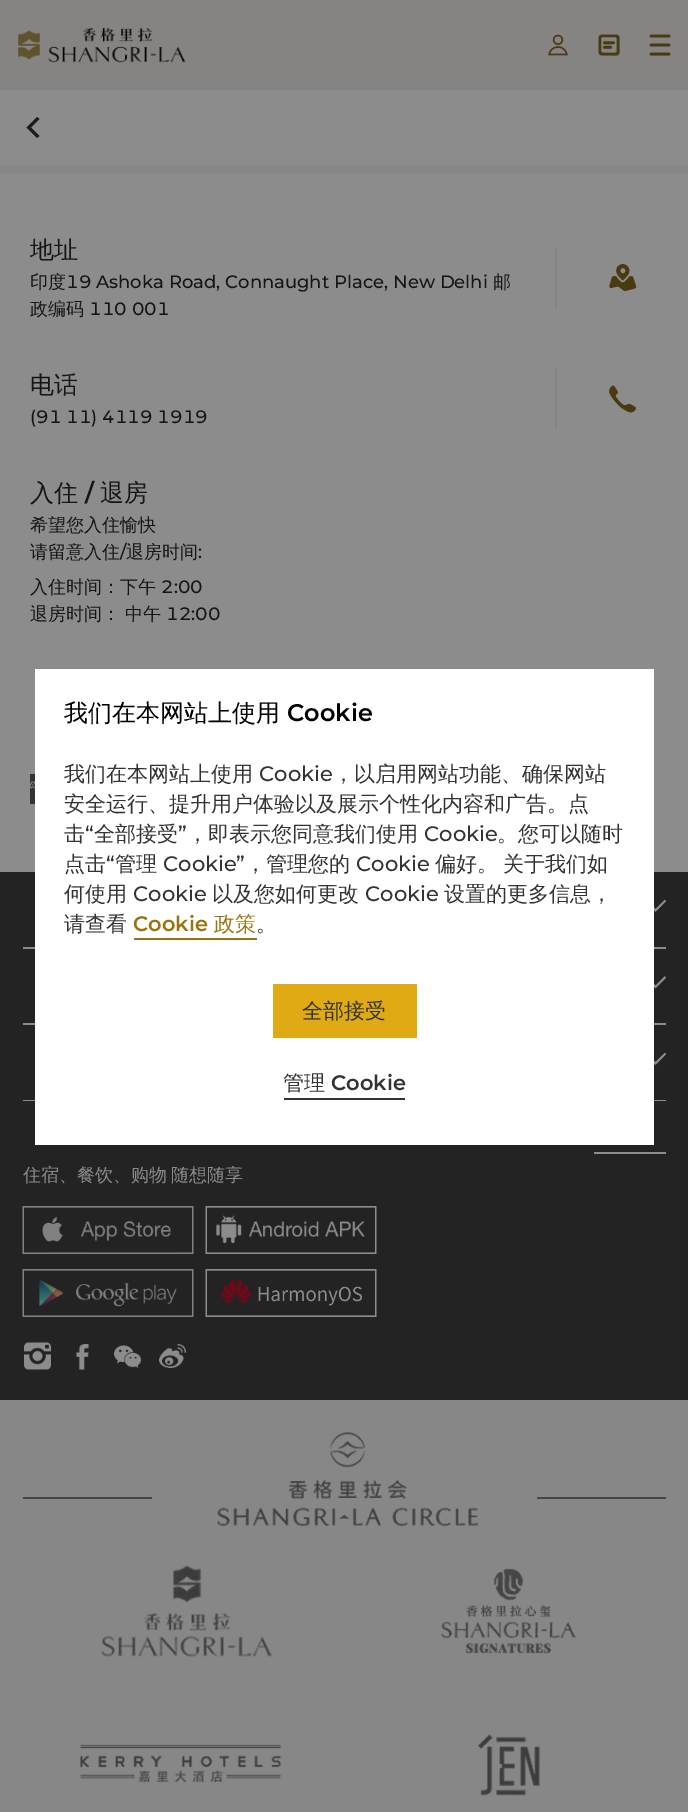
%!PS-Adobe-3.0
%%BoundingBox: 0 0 688 1812
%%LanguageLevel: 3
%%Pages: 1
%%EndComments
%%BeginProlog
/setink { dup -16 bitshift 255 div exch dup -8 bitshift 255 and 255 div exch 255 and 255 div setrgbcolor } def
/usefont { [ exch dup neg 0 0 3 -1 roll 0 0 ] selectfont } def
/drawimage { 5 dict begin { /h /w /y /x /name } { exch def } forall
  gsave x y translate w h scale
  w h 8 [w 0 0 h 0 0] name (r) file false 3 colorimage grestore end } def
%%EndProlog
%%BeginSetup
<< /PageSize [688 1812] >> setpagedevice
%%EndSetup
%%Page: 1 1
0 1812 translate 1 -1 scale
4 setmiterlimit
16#8C8C8C setink
0 0 688 1812 rectfill
16#868483 setink
0 0 688 90 rectfill
(img1.raw) 18 27 168 36 drawimage
(img2.raw) 548 34 20 22 drawimage
(img3.raw) 598 34 22 22 drawimage
(img4.raw) 649 34 22 22 drawimage
16#1C1C1C setink
37 138 moveto 39.5 136 lineto 31 127.5 lineto 39.5 119 lineto 37 117 lineto 26.5 127.5 lineto closepath fill
16#868787 setink
0 165 688 8 rectfill
/WenQuanYiZenHei-Medium 24 usefont
16#151515 setink
30 258 moveto (地址) show
/WenQuanYiZenHei-Medium 18 usefont
30 288 moveto (印度) show
/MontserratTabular-Medium 18 usefont
66 288 moveto (19 Ashoka Road, Connaught Place, New Delhi) show
/WenQuanYiZenHei-Medium 18 usefont
493 288 moveto (邮) show
30 315 moveto (政编码) show
/MontserratTabular-Medium 18 usefont
89 315 moveto (110 001) show
16#848484 setink
555 248 2 60 rectfill
(img5.raw) 609 264 28 28 drawimage
/WenQuanYiZenHei-Medium 24 usefont
16#151515 setink
30 393 moveto (电话) show
/MontserratTabular-Medium 18 usefont
30 423 moveto (\(91 11\) 4119 1919) show
16#848484 setink
555 369 2 60 rectfill
(img6.raw) 609 385 27 28 drawimage
/WenQuanYiZenHei-Medium 24 usefont
16#151515 setink
30 501 moveto (入住) show
/Montserrat-SemiBold 24 usefont
85 501 moveto (/) show
/WenQuanYiZenHei-Medium 24 usefont
100 501 moveto (退房) show
/WenQuanYiZenHei-Medium 18 usefont
30 531 moveto (希望您入住愉快) show
30 558 moveto (请留意入住) show
/Montserrat-Medium 18 usefont
120 558 moveto (/) show
/WenQuanYiZenHei-Medium 18 usefont
126 558 moveto (退房时间) show
/Montserrat-Medium 18 usefont
198 558 moveto (:) show
/WenQuanYiZenHei-Medium 18 usefont
30 593 moveto (入住时间：下午) show
/MontserratTabular-Medium 18 usefont
161 593 moveto (2:00) show
/WenQuanYiZenHei-Medium 18 usefont
30 620 moveto (退房时间： 中午) show
/MontserratTabular-Medium 18 usefont
166 620 moveto (12:00) show
(img7.raw) 30 774 5 30 drawimage
16#232323 setink
0 872 688 528 rectfill
16#8C8C8C setink
23 947 643 2 rectfill
(img8.raw) 654 899 12 13 drawimage
23 1023 643 2 rectfill
(img9.raw) 654 976 12 13 drawimage
(img8.raw) 654 1052 12 13 drawimage
23 1100 643 1 rectfill
594 1152 72 2 rectfill
/WenQuanYiZenHei-Medium 18 usefont
23 1181 moveto -1 0 32 (住宿、餐饮、购物 随想随享) widthshow
(img10.raw) 22 1206 172 48 drawimage
(img11.raw) 22 1269 172 48 drawimage
(img12.raw) 205 1206 172 48 drawimage
(img13.raw) 205 1269 172 48 drawimage
(img14.raw) 24 1342 27 28 drawimage
(img15.raw) 76 1344 13 26 drawimage
(img16.raw) 114 1345 27 23 drawimage
(img17.raw) 159 1344 27 24 drawimage
16#878787 setink
0 1400 688 412 rectfill
16#464646 setink
23 1497 129 2 rectfill
(img18.raw) 217 1431 261 96 drawimage
537 1497 129 2 rectfill
(img19.raw) 101 1565 172 92 drawimage
(img20.raw) 441 1568 135 86 drawimage
(img21.raw) 79 1744 203 39 drawimage
(img22.raw) 477 1734 63 62 drawimage
16#FFFFFF setink
35 669 619 476 rectfill
/WenQuanYiZenHei-Medium 24 usefont
16#000000 setink
64 721 moveto (我们在本网站上使用) show
/Montserrat-SemiBold 24 usefont
287 721 moveto (Cookie) show
/WenQuanYiZenHei-Medium 21 usefont
16#333333 setink
64 781 moveto (我们在本网站上使用) show
/Montserrat-Medium 21 usefont
259 781 moveto (Cookie) show
/WenQuanYiZenHei-Medium 21 usefont
[
    [(，以启用网站功能、确保网站) 333 781]
    [(安全运行、提升用户体验以及展示个性化内容和广告。点) 64 811]
    [(击) 64 841]
] { aload pop moveto show } forall
/Montserrat-Medium 21 usefont
85 841 moveto (“) show
/WenQuanYiZenHei-Medium 21 usefont
94 841 moveto (全部接受) show
/Montserrat-Medium 21 usefont
178 841 moveto (”) show
/WenQuanYiZenHei-Medium 21 usefont
187 841 moveto (，即表示您同意我们使用) show
/Montserrat-Medium 21 usefont
424 841 moveto (Cookie) show
/WenQuanYiZenHei-Medium 21 usefont
497 841 moveto (。您可以随时) show
64 871 moveto (点击) show
/Montserrat-Medium 21 usefont
106 871 moveto (“) show
/WenQuanYiZenHei-Medium 21 usefont
115 871 moveto (管理) show
/Montserrat-Medium 21 usefont
163 871 moveto (Cookie”) show
/WenQuanYiZenHei-Medium 21 usefont
245 871 moveto (，管理您的) show
/Montserrat-Medium 21 usefont
356 871 moveto (Cookie) show
/WenQuanYiZenHei-Medium 21 usefont
[
    [(偏好。) 435 871]
    [(关于我们如) 503 871]
    [(何使用) 64 901]
] { aload pop moveto show } forall
/Montserrat-Medium 21 usefont
133 901 moveto (Cookie) show
/WenQuanYiZenHei-Medium 21 usefont
212 901 moveto (以及您如何更改) show
/Montserrat-Medium 21 usefont
365 901 moveto (Cookie) show
/WenQuanYiZenHei-Medium 21 usefont
444 901 moveto (设置的更多信息，) show
64 931 moveto (请查看) show
/Montserrat-SemiBold 21 usefont
16#9A750F setink
133 931 moveto (Cookie) show
/WenQuanYiZenHei-Medium 21 usefont
214 931 moveto (政策) show
134 938 123 2 rectfill
16#333333 setink
256 931 moveto (。) show
16#E0AA14 setink
273 984 144 54 rectfill
16#333333 setink
302 1018 moveto (全部接受) show
284 1098 121 2 rectfill
283 1090 moveto (管理) show
/Montserrat-SemiBold 21 usefont
331 1090 moveto (Cookie) show
showpage
%%EOF
